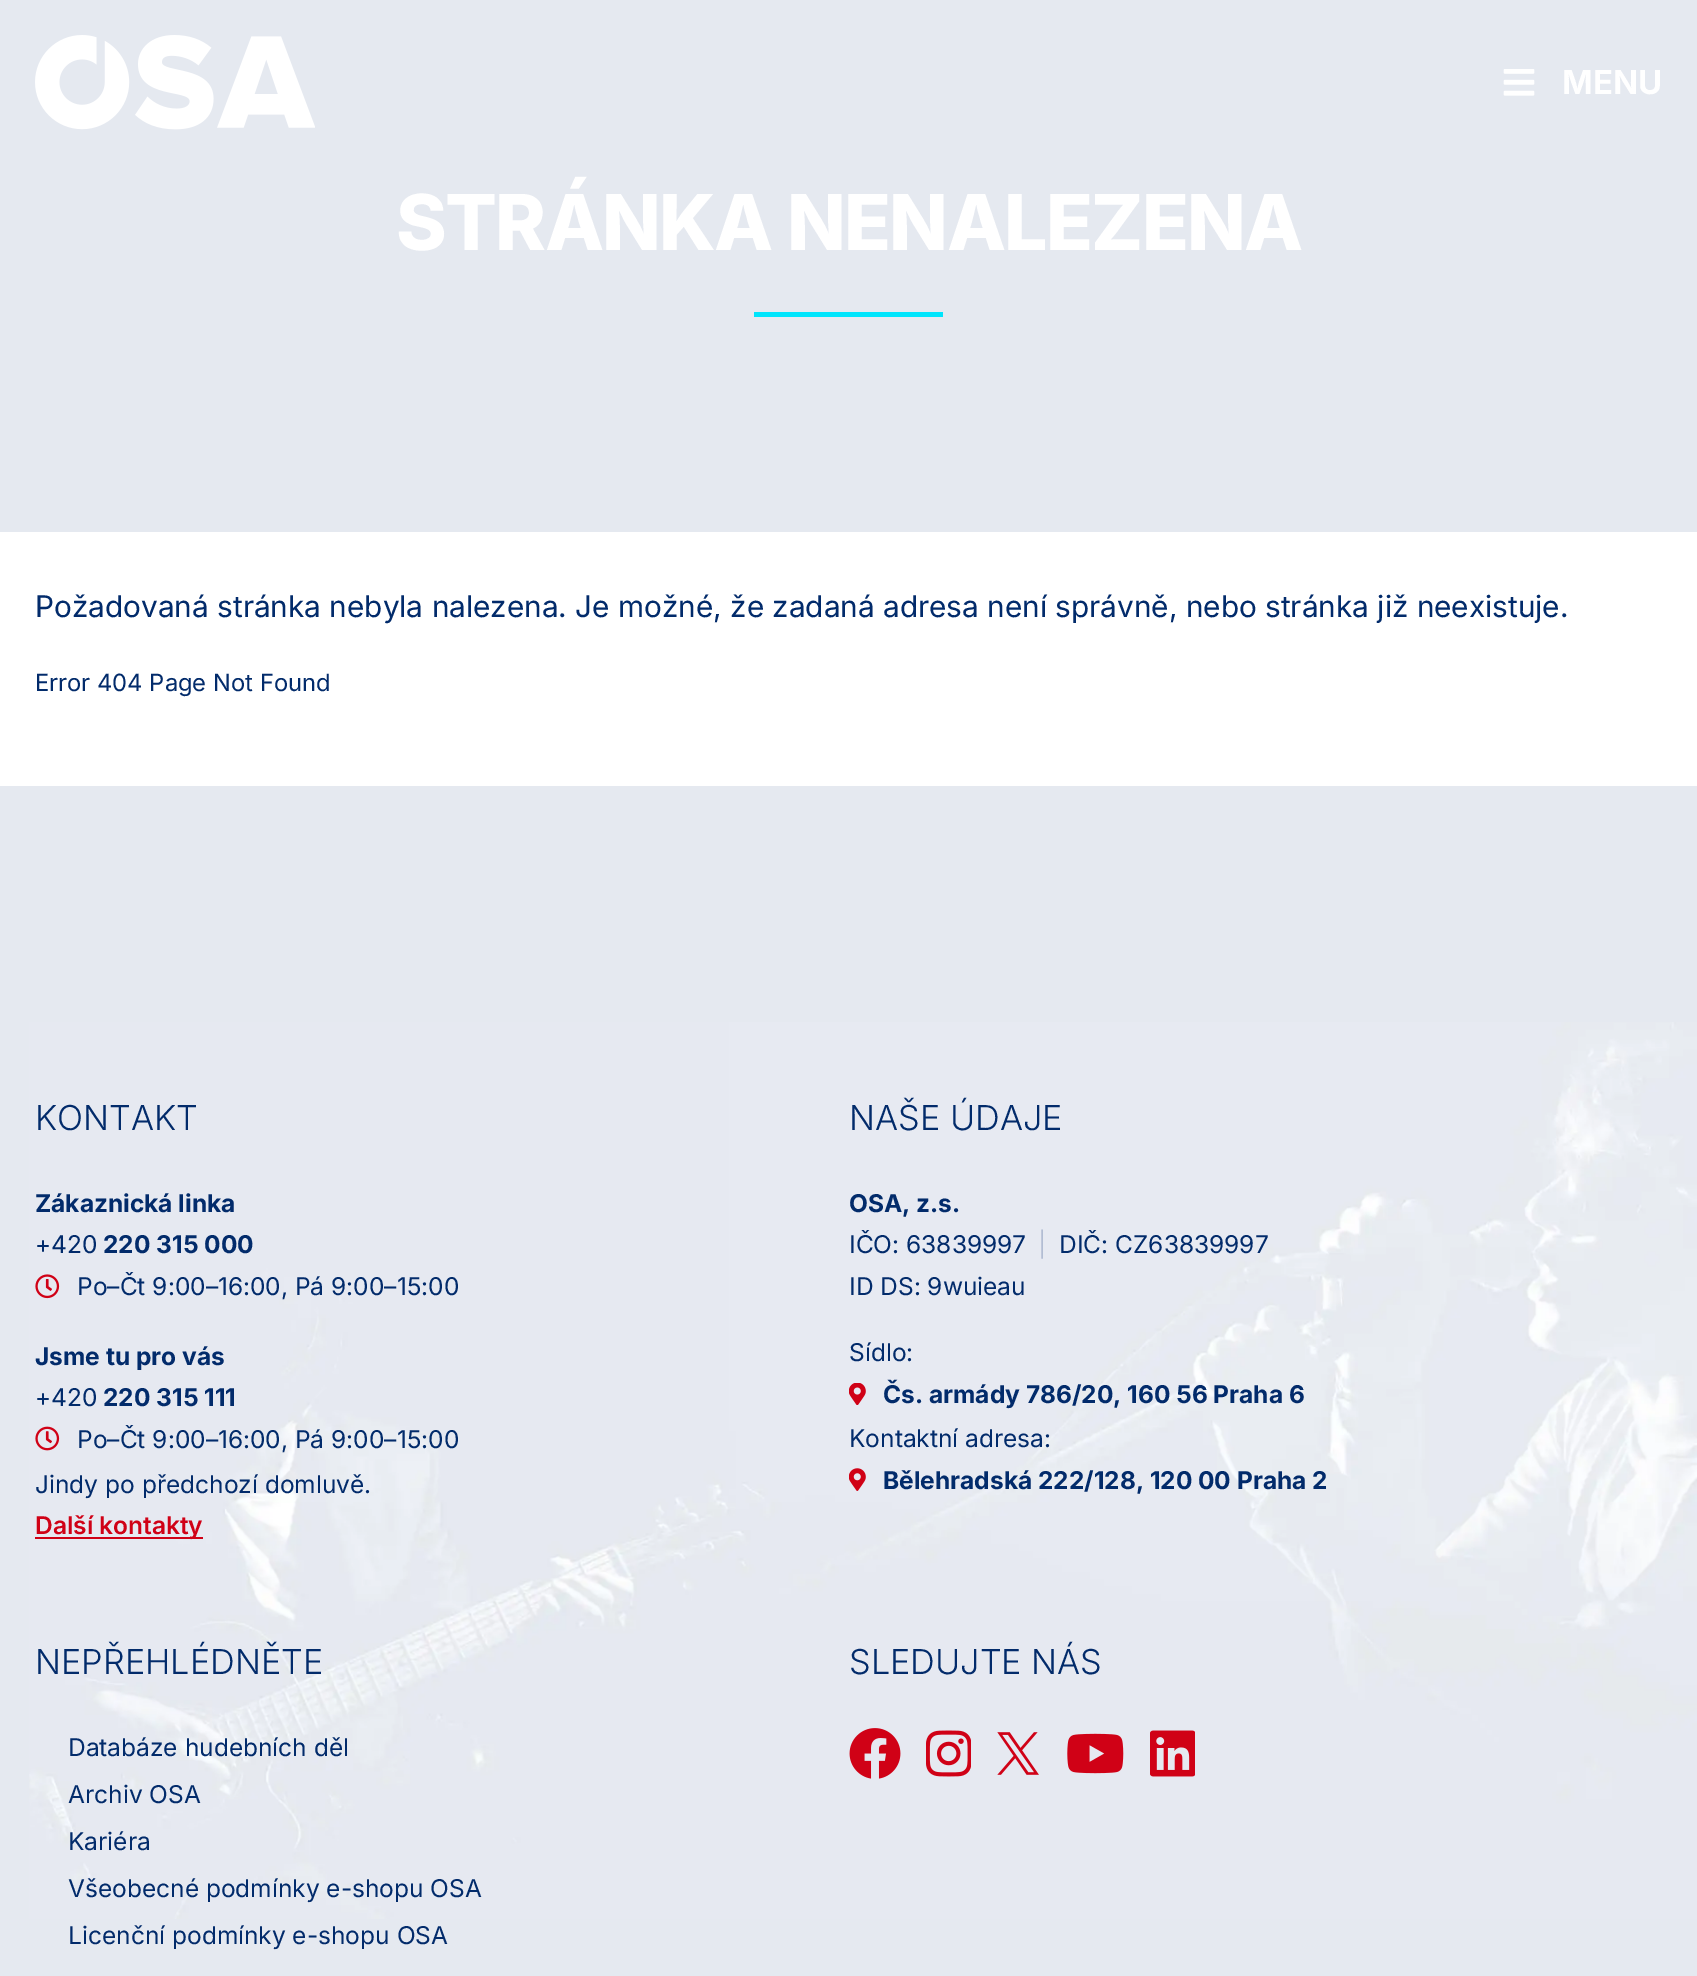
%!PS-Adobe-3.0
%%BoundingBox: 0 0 1697 1976
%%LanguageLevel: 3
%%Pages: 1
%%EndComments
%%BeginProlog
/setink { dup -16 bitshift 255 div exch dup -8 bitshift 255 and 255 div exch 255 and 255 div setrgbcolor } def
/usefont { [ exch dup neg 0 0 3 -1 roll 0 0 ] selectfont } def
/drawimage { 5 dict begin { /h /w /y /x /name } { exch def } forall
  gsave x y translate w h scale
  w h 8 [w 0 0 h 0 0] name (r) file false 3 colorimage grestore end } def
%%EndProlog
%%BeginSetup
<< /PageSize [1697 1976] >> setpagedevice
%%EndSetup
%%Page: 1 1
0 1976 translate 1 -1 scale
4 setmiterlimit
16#E5E9F0 setink
0 0 1697 1976 rectfill
(img1.raw) 29 1022 1668 897 drawimage
(img2.raw) 35 35 280 95 drawimage
(img3.raw) 1503 69 32 27 drawimage
/Inter-Bold 33 usefont
16#FFFFFF setink
1562 94 moveto (MENU) show
/Inter-ExtraBold 77 usefont
396 250 moveto -1.75 0 (STRÁNKA NENALEZENA) ashow
16#00E5FC setink
754 312 189 5 rectfill
16#FFFFFF setink
0 532 1697 254 rectfill
/Inter-Regular 29.75 usefont
16#022B6B setink
35 617 moveto (Požadovaná stránka nebyla nalezena. Je možné, že zadaná adresa není správně, nebo stránka již neexistuje.) show
/Inter-Regular 23.75 usefont
35 691 moveto (Error 404 Page Not Found) show
/Inter-Light 34.25 usefont
35 1130 moveto (KONTAKT) show
/Inter-Bold 24.5 usefont
35 1212 moveto (Zákaznická linka) show
/Inter-Regular 24.5 usefont
35 1253 moveto (+420) show
/Inter-Bold 24.5 usefont
103 1253 moveto (220 315 000) show
(img4.raw) 35 1274 25 25 drawimage
/Inter-Regular 24.5 usefont
77 1295 moveto (Po–Čt 9:00–16:00, Pá 9:00–15:00) show
/Inter-Bold 24.5 usefont
35 1365 moveto (Jsme tu pro vás) show
/Inter-Regular 24.5 usefont
35 1406 moveto (+420) show
/Inter-Bold 24.5 usefont
103 1406 moveto (220 315 111) show
(img5.raw) 35 1426 25 25 drawimage
/Inter-Regular 24.5 usefont
77 1448 moveto (Po–Čt 9:00–16:00, Pá 9:00–15:00) show
35 1493 moveto (Jindy po předchozí domluvě.) show
16#D00116 setink
35 1537 168 2 rectfill
/Inter-SemiBold 24.5 usefont
35 1534 moveto (Další kontakty) show
/Inter-Light 34.25 usefont
16#022B6B setink
849 1130 moveto (NAŠE ÚDAJE) show
/Inter-Bold 24.5 usefont
849 1212 moveto (OSA, z.s.) show
/Inter-Regular 24.5 usefont
849 1253 moveto (IČO: 63839997) show
16#B2BDD3 setink
1038 1253 moveto (|) show
16#022B6B setink
[
    [(DIČ: CZ63839997) 1059 1253]
    [(ID DS: 9wuieau) 849 1295]
    [(Sídlo:) 849 1361]
] { aload pop moveto show } forall
(img6.raw) 849 1383 17 22 drawimage
/Inter-Bold 24.5 usefont
883 1403 moveto (Čs. armády 786/20, 160 56 Praha 6) show
/Inter-Regular 24.5 usefont
849 1447 moveto (Kontaktní adresa:) show
(img7.raw) 849 1468 17 23 drawimage
/Inter-Bold 24.5 usefont
883 1489 moveto (Bělehradská 222/128, 120 00 Praha 2) show
/Inter-Light 34.25 usefont
35 1674 moveto (NEPŘEHLÉDNĚTE) show
/Inter-Regular 24.5 usefont
[
    [(Databáze hudebních děl) 68 1756]
    [(Archiv OSA) 68 1803]
    [(Kariéra) 68 1850]
    [(Všeobecné podmínky e-shopu OSA) 68 1897]
    [(Licenční podmínky e-shopu OSA) 68 1944]
] { aload pop moveto show } forall
/Inter-Light 34.25 usefont
849 1674 moveto (SLEDUJTE NÁS) show
(img8.raw) 849 1728 52 51 drawimage
(img9.raw) 926 1730 45 47 drawimage
(img10.raw) 997 1732 42 43 drawimage
(img11.raw) 1067 1733 57 41 drawimage
(img12.raw) 1150 1730 45 47 drawimage
showpage
%%EOF
